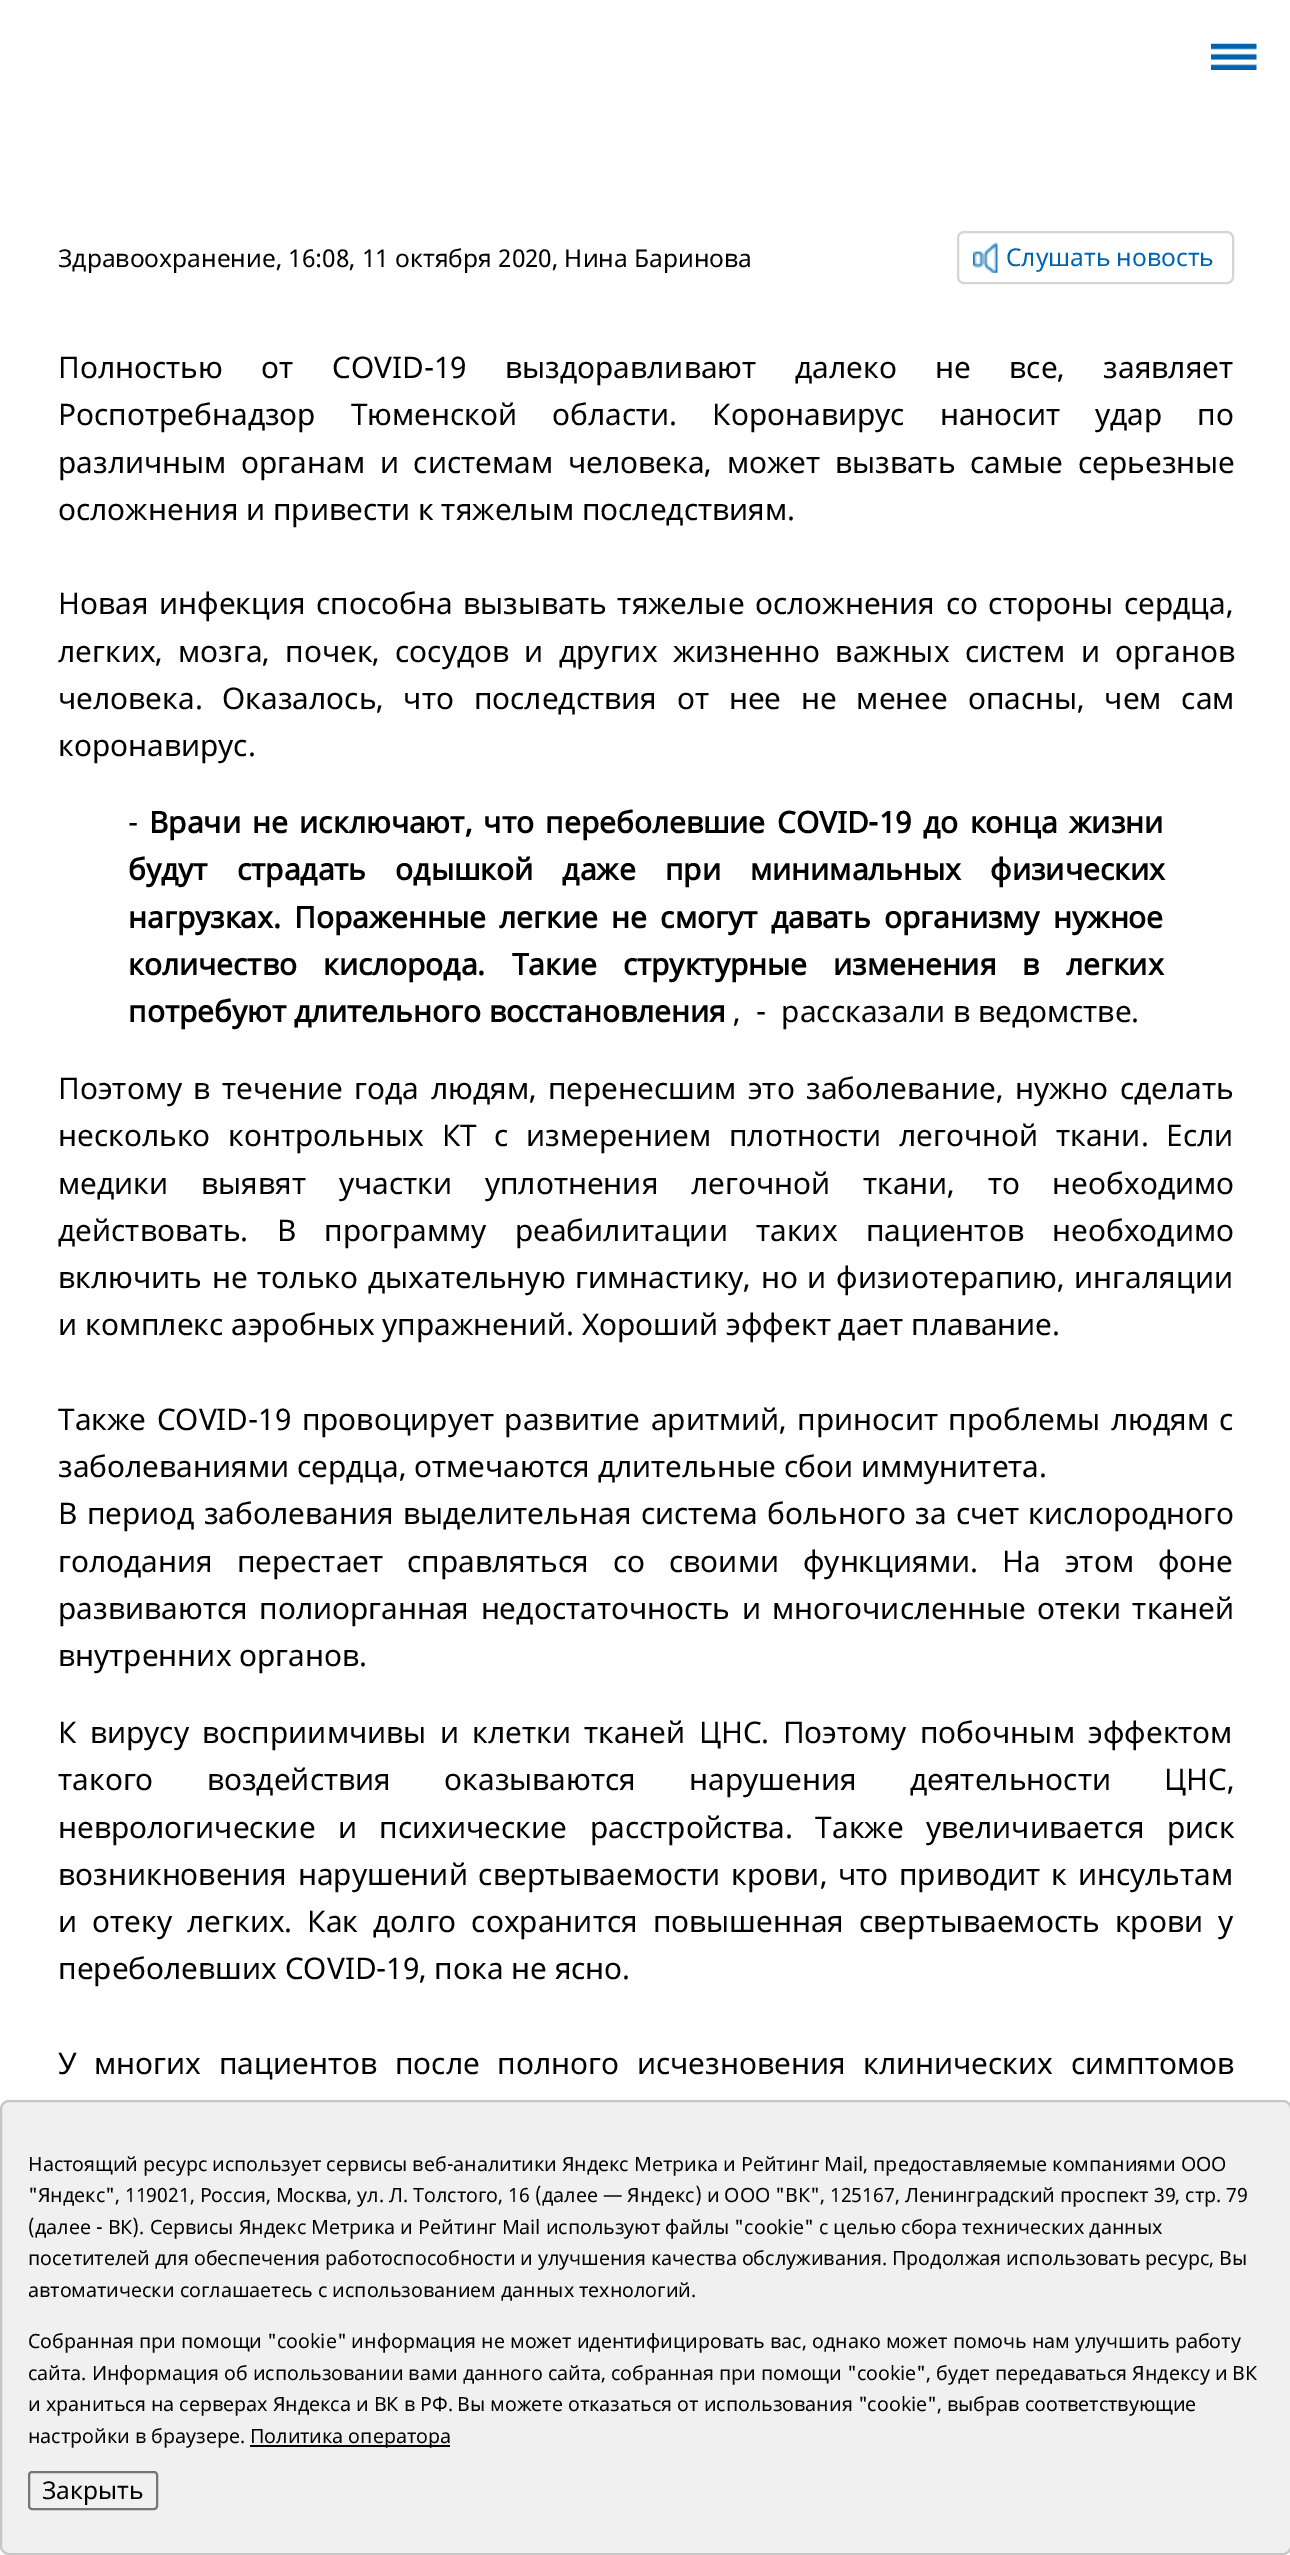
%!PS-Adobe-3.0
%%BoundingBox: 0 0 1290 2555
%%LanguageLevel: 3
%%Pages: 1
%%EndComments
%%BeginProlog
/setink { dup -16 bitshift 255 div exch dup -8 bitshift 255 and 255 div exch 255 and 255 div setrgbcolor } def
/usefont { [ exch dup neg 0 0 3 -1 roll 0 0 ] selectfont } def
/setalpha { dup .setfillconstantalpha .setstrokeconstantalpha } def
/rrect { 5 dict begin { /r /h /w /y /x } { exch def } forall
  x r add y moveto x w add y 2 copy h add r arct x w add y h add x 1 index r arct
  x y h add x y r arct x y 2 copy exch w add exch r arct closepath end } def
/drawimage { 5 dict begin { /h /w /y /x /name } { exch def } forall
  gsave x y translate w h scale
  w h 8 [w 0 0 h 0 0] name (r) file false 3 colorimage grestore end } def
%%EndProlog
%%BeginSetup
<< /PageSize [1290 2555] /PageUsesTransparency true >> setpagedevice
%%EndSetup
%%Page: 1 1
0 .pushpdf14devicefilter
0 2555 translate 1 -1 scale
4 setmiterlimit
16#FFFFFF setink
0 0 1290 2555 rectfill
(img1.raw) 1211 43 46 27 drawimage
/NotoSans-Regular 24.5 usefont
16#000000 setink
58 267 moveto (Здравоохранение, 16:08, 11 октября 2020, Нина Баринова) show
16#D5D5D5 setink
2 setlinewidth
958 232 275 51 6 rrect stroke
(img2.raw) 973 242 25 31 drawimage
16#0063AD setink
1006 266 moveto (Слушать новость) show
/NotoSans-Regular 29.75 usefont
16#000000 setink
58 378 moveto 30.75 0 32 (Полностью от COVID-19 выздоравливают далеко не все, заявляет) widthshow
58 425 moveto 27.25 0 32 (Роспотребнадзор Тюменской области. Коронавирус наносит удар по) widthshow
58 473 moveto 7 0 32 (различным органам и системам человека, может вызвать самые серьезные) widthshow
58 520 moveto (осложнения и привести к тяжелым последствиям.) show
58 614 moveto 2.75 0 32 (Новая инфекция способна вызывать тяжелые осложнения со стороны сердца,) widthshow
58 662 moveto 7.5 0 32 (легких, мозга, почек, сосудов и других жизненно важных систем и органов) widthshow
58 709 moveto 12 0 32 (человека. Оказалось, что последствия от нее не менее опасны, чем сам) widthshow
58 756 moveto (коронавирус.) show
128 833 moveto (-) show
/NotoSans-Bold 29.75 usefont
149 833 moveto 3.75 0 32 (Врачи не исключают, что переболевшие COVID-19 до конца жизни) widthshow
128 880 moveto 21.5 0 32 (будут страдать одышкой даже при минимальных физических) widthshow
128 928 moveto 5.75 0 32 (нагрузках. Пораженные легкие не смогут давать организму нужное) widthshow
128 975 moveto 18.5 0 32 (количество кислорода. Такие структурные изменения в легких) widthshow
128 1022 moveto (потребуют длительного восстановления) show
/NotoSans-Regular 29.75 usefont
733 1022 moveto (,  -  рассказали в ведомстве.) show
58 1099 moveto 3.75 0 32 (Поэтому в течение года людям, перенесшим это заболевание, нужно сделать) widthshow
58 1146 moveto 10 0 32 (несколько контрольных КТ с измерением плотности легочной ткани. Если) widthshow
58 1194 moveto 25 0 32 (медики выявят участки уплотнения легочной ткани, то необходимо) widthshow
58 1241 moveto 20.5 0 32 (действовать. В программу реабилитации таких пациентов необходимо) widthshow
58 1288 moveto 2 0 32 (включить не только дыхательную гимнастику, но и физиотерапию, ингаляции) widthshow
58 1335 moveto (и комплекс аэробных упражнений. Хороший эффект дает плавание.) show
58 1430 moveto 2.75 0 32 (Также COVID-19 провоцирует развитие аритмий, приносит проблемы людям с) widthshow
58 1477 moveto (заболеваниями сердца, отмечаются длительные сбои иммунитета.) show
58 1524 moveto 1.5 0 32 (В период заболевания выделительная система больного за счет кислородного) widthshow
58 1572 moveto 16.25 0 32 (голодания перестает справляться со своими функциями. На этом фоне) widthshow
58 1619 moveto 3.75 0 32 (развиваются полиорганная недостаточность и многочисленные отеки тканей) widthshow
58 1666 moveto (внутренних органов.) show
58 1743 moveto 5.5 0 32 (К вирусу восприимчивы и клетки тканей ЦНС. Поэтому побочным эффектом) widthshow
58 1790 moveto 45.5 0 32 (такого воздействия оказываются нарушения деятельности ЦНС,) widthshow
58 1838 moveto 14.75 0 32 (неврологические и психические расстройства. Также увеличивается риск) widthshow
58 1885 moveto 3 0 32 (возникновения нарушений свертываемости крови, что приводит к инсультам) widthshow
58 1932 moveto 7.25 0 32 (и отеку легких. Как долго сохранится повышенная свертываемость крови у) widthshow
58 1979 moveto (переболевших COVID-19, пока не ясно.) show
58 2074 moveto 10 0 32 (У многих пациентов после полного исчезновения клинических симптомов) widthshow
0.95 setalpha
16#EFEFEF setink
1 2101 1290 453 8 rrect fill
1 setalpha
16#C6C6C6 setink
1 2101 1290 453 8 rrect stroke
/NotoSans-Regular 19.6 usefont
16#000000 setink
[
    [(Настоящий ресурс использует сервисы веб-аналитики Яндекс Метрика и Рейтинг Mail, предоставляемые компаниями ООО) 28 2171]
    [("Яндекс", 119021, Россия, Москва, ул. Л. Толстого, 16 \(далее — Яндекс\) и ООО "ВК", 125167, Ленинградский проспект 39, стр. 79) 28 2202]
    [(\(далее - ВК\). Сервисы Яндекс Метрика и Рейтинг Mail используют файлы "cookie" с целью сбора технических данных) 28 2234]
    [(посетителей для обеспечения работоспособности и улучшения качества обслуживания. Продолжая использовать ресурс, Вы) 28 2265]
    [(автоматически соглашаетесь с использованием данных технологий.) 28 2297]
    [(Собранная при помощи "cookie" информация не может идентифицировать вас, однако может помочь нам улучшить работу) 28 2348]
    [(сайта. Информация об использовании вами данного сайта, собранная при помощи "cookie", будет передаваться Яндексу и ВК) 28 2380]
    [(и храниться на серверах Яндекса и ВК в РФ.) 28 2411]
    [(Вы можете отказаться от использования "cookie", выбрав соответствующие) 457 2411]
    [(настройки в браузере.) 28 2443]
] { aload pop moveto show } forall
250 2445 200 2 rectfill
250 2443 moveto (Политика оператора) show
16#767676 setink
29 2472 128 37 3 rrect stroke
/NotoSans-Regular 24.5 usefont
16#000000 setink
42 2499 moveto (Закрыть) show
.poppdf14devicefilter showpage
%%EOF
